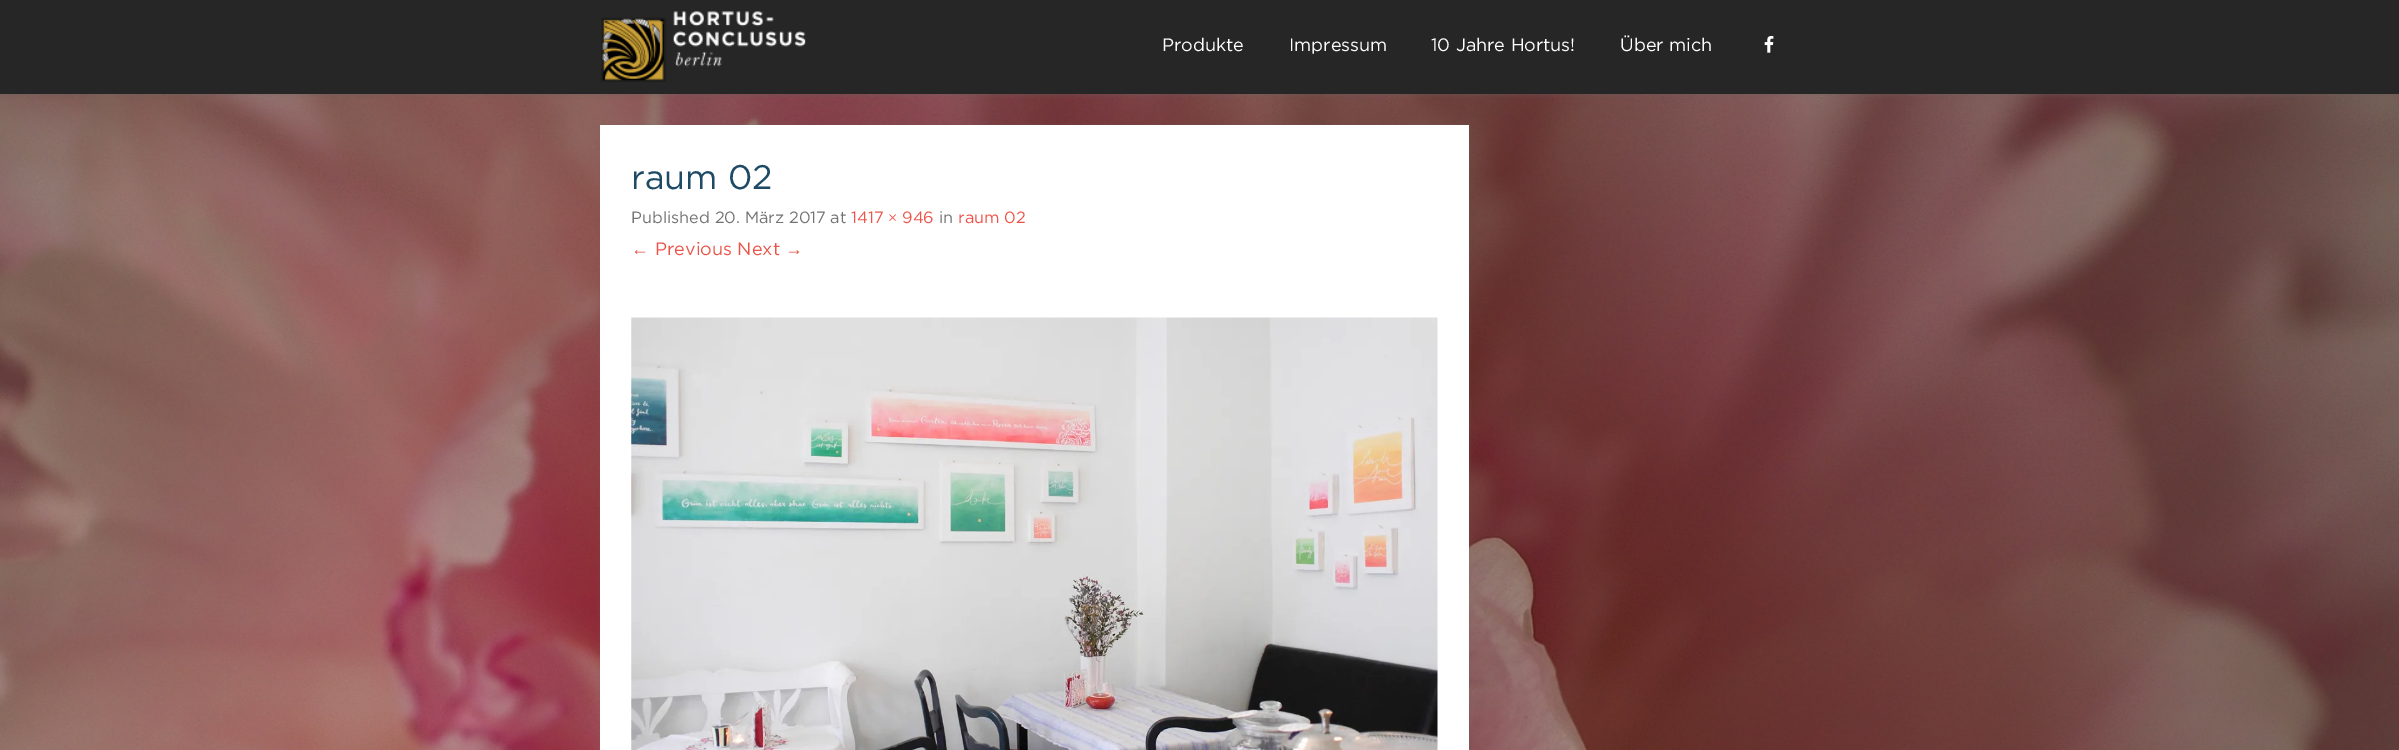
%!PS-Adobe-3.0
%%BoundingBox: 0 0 2399 750
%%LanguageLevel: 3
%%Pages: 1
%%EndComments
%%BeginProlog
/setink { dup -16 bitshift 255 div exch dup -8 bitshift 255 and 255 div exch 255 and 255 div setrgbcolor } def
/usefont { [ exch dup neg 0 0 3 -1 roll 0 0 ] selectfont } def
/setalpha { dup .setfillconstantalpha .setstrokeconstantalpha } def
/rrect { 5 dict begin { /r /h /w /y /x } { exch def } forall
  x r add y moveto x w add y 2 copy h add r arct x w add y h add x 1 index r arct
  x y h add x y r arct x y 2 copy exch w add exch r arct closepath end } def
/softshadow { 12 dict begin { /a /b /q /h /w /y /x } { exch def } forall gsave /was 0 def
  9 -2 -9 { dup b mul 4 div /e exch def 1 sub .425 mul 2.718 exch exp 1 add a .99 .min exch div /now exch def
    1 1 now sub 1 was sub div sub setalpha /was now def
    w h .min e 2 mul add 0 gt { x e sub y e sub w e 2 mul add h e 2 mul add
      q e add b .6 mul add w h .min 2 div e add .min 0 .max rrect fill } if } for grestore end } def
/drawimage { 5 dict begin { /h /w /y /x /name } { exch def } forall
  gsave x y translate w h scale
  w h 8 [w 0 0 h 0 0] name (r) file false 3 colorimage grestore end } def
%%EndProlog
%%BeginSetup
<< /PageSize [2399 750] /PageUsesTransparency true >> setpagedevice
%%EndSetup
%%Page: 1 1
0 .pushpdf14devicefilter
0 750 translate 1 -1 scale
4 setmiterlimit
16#FFFFFF setink
0 0 2399 750 rectfill
(img1.raw) 0 94 2399 656 drawimage
16#646464 setink
0 3 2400 93 0 2 0.25 softshadow
16#262626 setink
0 0 2399 94 rectfill
(img2.raw) 601 11 205 71 drawimage
/Gotham-Regular 18 usefont
16#FFFFFF setink
[
    [(Produkte) 1162 51]
    [(Impressum) 1289 51]
    [(10 Jahre Hortus!) 1431 51]
    [(Über mich) 1620 51]
] { aload pop moveto show } forall
(img3.raw) 1764 35 10 18 drawimage
16#646464 setink
600 125 869 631 0 2 0.25 softshadow
16#FFFFFF setink
600 125 869 625 rectfill
/Gotham-Regular 34 usefont
16#1E4A66 setink
631 189 moveto (raum 02) show
/Gotham-Regular 16.25 usefont
16#737373 setink
631 223 moveto (Published 20. März 2017 at) show
16#EA5449 setink
851 223 moveto (1417) show
/LiberationSerif-Regular 16.25 usefont
888 223 moveto (×) show
/Gotham-Regular 16.25 usefont
902 223 moveto (946) show
16#737373 setink
939 223 moveto (in) show
16#EA5449 setink
958 223 moveto (raum 02) show
/LiberationSerif-Regular 18 usefont
631 255 moveto (←) show
/Gotham-Regular 18 usefont
655 255 moveto (Previous Next) show
/LiberationSerif-Regular 18 usefont
785 255 moveto (→) show
(img4.raw) 631 317 807 433 drawimage
.poppdf14devicefilter showpage
%%EOF
